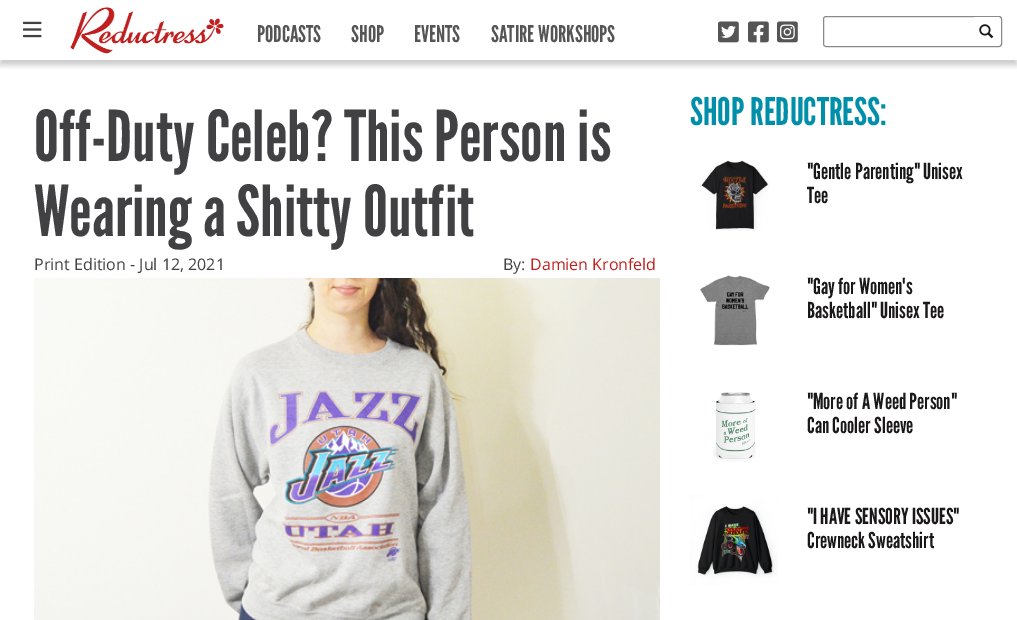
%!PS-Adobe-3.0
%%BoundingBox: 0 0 1017 620
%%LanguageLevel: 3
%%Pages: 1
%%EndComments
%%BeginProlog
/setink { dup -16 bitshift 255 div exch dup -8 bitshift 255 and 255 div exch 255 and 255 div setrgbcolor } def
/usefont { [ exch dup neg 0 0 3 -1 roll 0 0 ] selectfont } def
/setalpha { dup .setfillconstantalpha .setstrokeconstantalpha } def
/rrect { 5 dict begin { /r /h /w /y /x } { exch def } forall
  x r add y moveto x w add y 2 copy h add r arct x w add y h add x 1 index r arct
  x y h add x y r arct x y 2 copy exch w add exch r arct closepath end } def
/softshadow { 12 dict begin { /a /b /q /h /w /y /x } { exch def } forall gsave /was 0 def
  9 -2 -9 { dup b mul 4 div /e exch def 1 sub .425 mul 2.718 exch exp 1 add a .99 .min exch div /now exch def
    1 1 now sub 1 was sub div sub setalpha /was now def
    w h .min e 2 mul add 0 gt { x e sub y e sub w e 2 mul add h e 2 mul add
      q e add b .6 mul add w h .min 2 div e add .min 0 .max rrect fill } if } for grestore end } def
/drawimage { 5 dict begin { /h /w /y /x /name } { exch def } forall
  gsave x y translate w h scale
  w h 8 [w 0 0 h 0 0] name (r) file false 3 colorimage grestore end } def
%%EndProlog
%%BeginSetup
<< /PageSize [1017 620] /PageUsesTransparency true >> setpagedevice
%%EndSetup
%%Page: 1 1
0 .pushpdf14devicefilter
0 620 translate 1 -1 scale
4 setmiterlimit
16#FFFFFF setink
0 0 1017 620 rectfill
gsave
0 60 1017 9 rectclip
16#323232 setink
0 5 1017 60 0 3 0.26 softshadow
grestore
(img1.raw) 23 21 19 17 drawimage
(img2.raw) 70 7 154 47 drawimage
/LeagueGothic-Regular 23 usefont
16#555555 setink
[
    [(PODCASTS) 257 42]
    [(SHOP) 351 42]
    [(EVENTS) 414 42]
    [(SATIRE WORKSHOPS) 491 42]
] { aload pop moveto show } forall
(img3.raw) 718 21 21 22 drawimage
(img4.raw) 748 21 21 22 drawimage
(img5.raw) 777 21 21 22 drawimage
16#8A8A8A setink
823.5 16.5 178 30 2.5 rrect stroke
16#FFFFFF setink
974 16 moveto 999 16 lineto 1000.5 16 1002 17.5 1002 19 curveto 1002 44 lineto 1002 45.5 1000.5 47 999 47 curveto 974 47 lineto closepath fill
16#8A8A8A setink
974 16 moveto 999 16 lineto 1000.5 16 1002 17.5 1002 19 curveto 1002 44 lineto 1002 45.5 1000.5 47 999 47 curveto 974 47 lineto closepath 974 17 moveto 999 17 lineto 1000 17 1001 18 1001 19 curveto 1001 44 lineto 1001 45 1000 46 999 46 curveto 974 46 lineto closepath eofill
(img6.raw) 979 24 15 15 drawimage
/LeagueGothic-Regular 70 usefont
16#414042 setink
34 161 moveto (Off-Duty Celeb? This Person is) show
34 236 moveto (Wearing a Shitty Outfit) show
/OpenSans-Regular 16 usefont
34 270 moveto (Print Edition - Jul 12, 2021) show
503 270 moveto (By:) show
16#C11E1E setink
530 270 moveto (Damien Kronfeld) show
(img7.raw) 34 278 626 342 drawimage
/LeagueGothic-Regular 38 usefont
16#008FAA setink
690 125 moveto (SHOP REDUCTRESS:) show
(img8.raw) 701 160 68 71 drawimage
/LeagueGothic-Regular 22 usefont
16#1A1818 setink
807 179 moveto ("Gentle Parenting" Unisex) show
807 203 moveto (Tee) show
(img9.raw) 700 275 70 71 drawimage
807 294 moveto ("Gay for Women's) show
807 318 moveto (Basketball" Unisex Tee) show
(img10.raw) 713 392 43 70 drawimage
807 409 moveto ("More of A Weed Person") show
807 433 moveto (Can Cooler Sleeve) show
(img11.raw) 690 495 88 90 drawimage
807 524 moveto ("I HAVE SENSORY ISSUES") show
807 548 moveto (Crewneck Sweatshirt) show
.poppdf14devicefilter showpage
%%EOF
